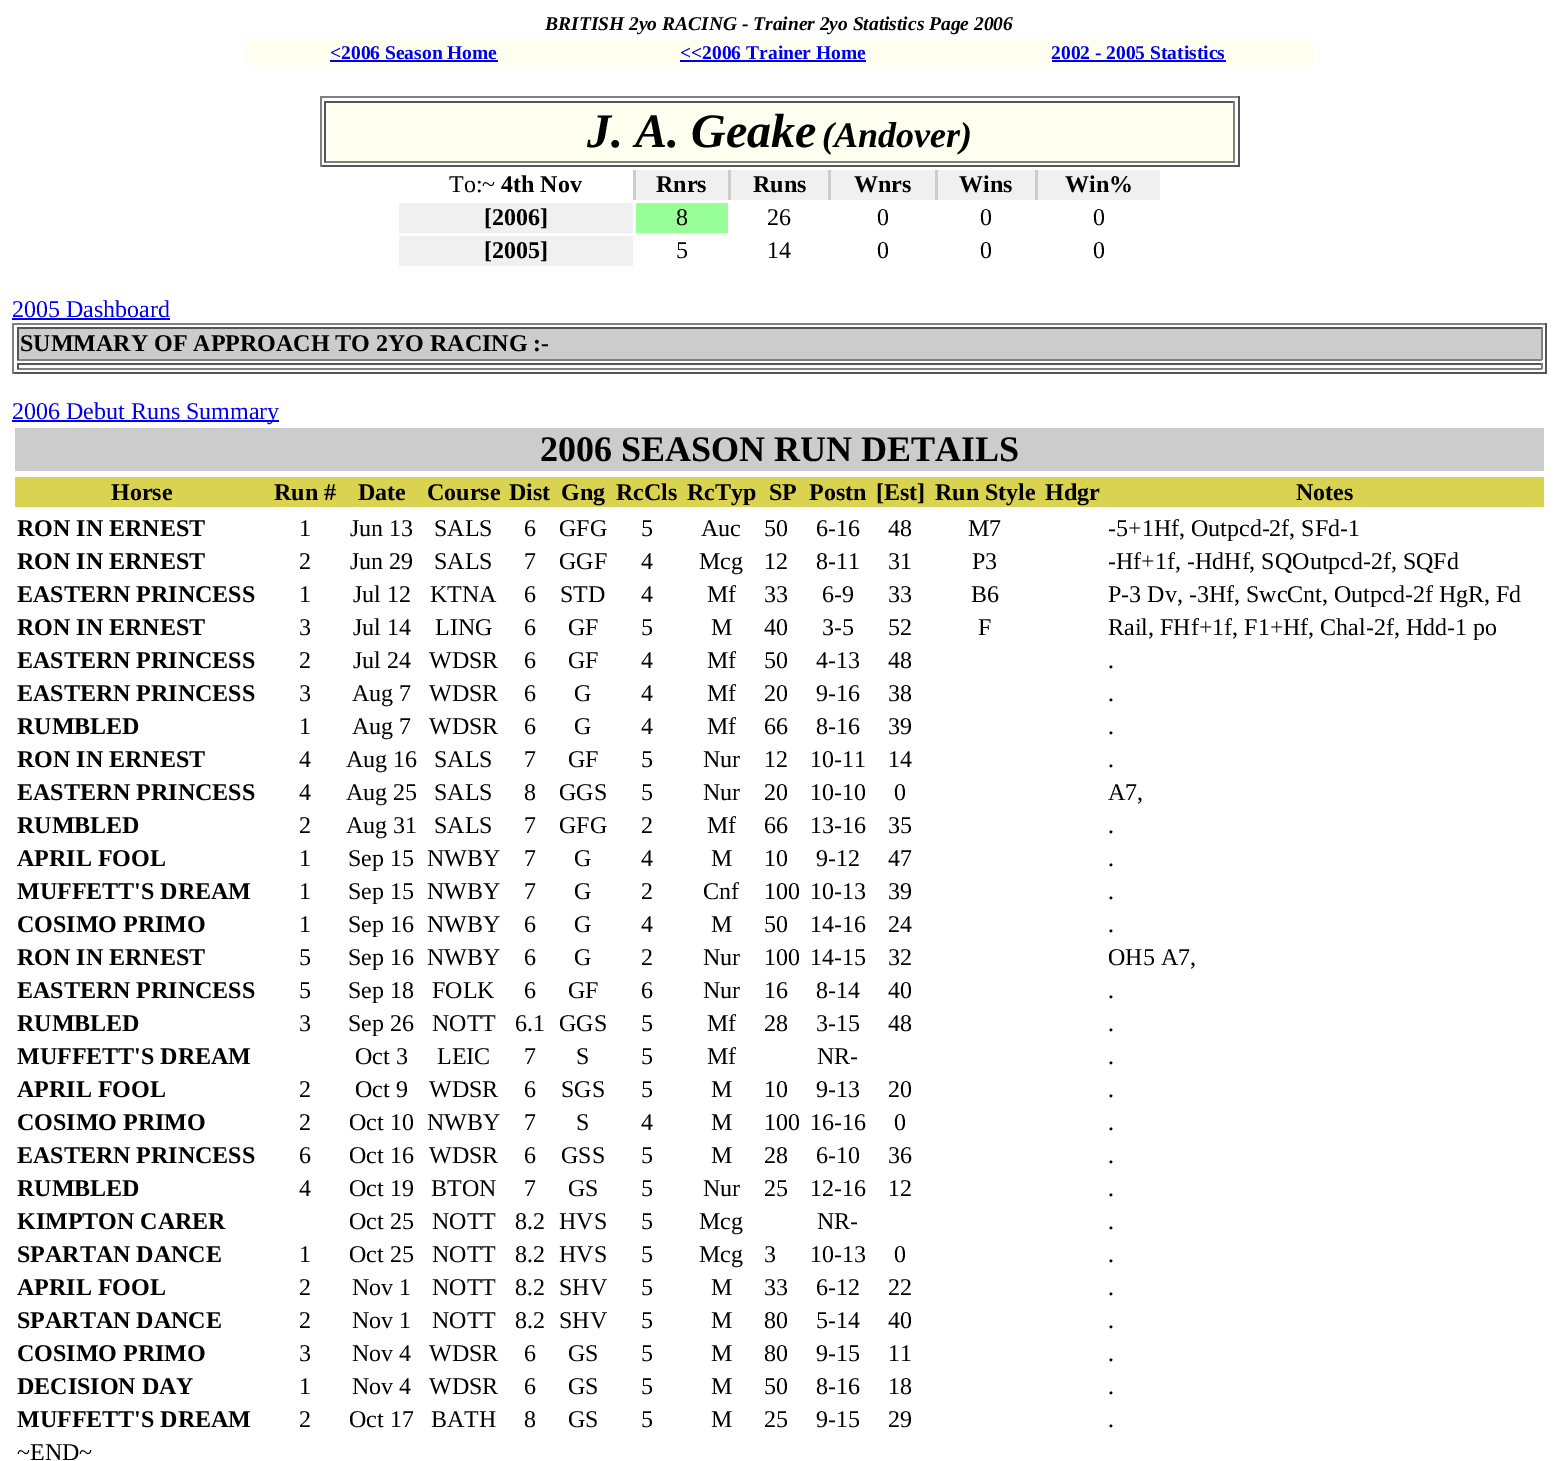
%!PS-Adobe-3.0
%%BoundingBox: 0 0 1558 1461
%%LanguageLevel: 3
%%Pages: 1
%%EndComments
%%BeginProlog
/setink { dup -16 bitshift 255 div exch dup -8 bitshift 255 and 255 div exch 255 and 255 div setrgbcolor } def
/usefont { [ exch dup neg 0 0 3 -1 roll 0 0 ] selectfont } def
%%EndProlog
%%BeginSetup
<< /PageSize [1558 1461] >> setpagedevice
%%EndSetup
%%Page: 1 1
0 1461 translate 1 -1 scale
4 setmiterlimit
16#FFFFFF setink
0 0 1558 1461 rectfill
/LiberationSerif-BoldItalic 19.5 usefont
16#000000 setink
545 30 moveto (BRITISH 2yo RACING - Trainer 2yo Statistics Page 2006) show
16#FFFFF0 setink
245 39 1069 27 rectfill
/LiberationSerif-Bold 19.5 usefont
16#0000EE setink
330 59 moveto (<2006 Season Home) show
330 60 168 2 rectfill
680 59 moveto (<<2006 Trainer Home) show
680 60 186 2 rectfill
1051 59 moveto (2002 - 2005 Statistics) show
[
    [1052 60 174 2 16#0000EE]
    [320 96 919 2 16#808080]
    [1238 96 2 71 16#555555]
    [320 165 919 2 16#555555]
    [320 96 2 71 16#808080]
    [326 103 907 58 16#FFFFF0]
    [324 101 911 2 16#555555]
    [1233 101 2 61 16#808080]
    [324 161 911 2 16#808080]
    [324 101 2 61 16#555555]
] { aload pop setink rectfill } forall
/LiberationSerif-BoldItalic 48 usefont
16#000000 setink
587 147 moveto (J. A. Geake) show
/LiberationSerif-BoldItalic 36 usefont
822 147 moveto (\(Andover\)) show
16#CCCCCC setink
633 170 405 30 rectfill
/LiberationSerif-Regular 24 usefont
16#000000 setink
449 192 moveto (To:~) show
/LiberationSerif-Bold 24 usefont
501 192 moveto (4th Nov) show
16#F0F0F0 setink
636 170 92 30 rectfill
16#000000 setink
656 192 moveto (Rnrs) show
16#F0F0F0 setink
731 170 97 30 rectfill
16#000000 setink
753 192 moveto (Runs) show
16#F0F0F0 setink
831 170 104 30 rectfill
16#000000 setink
854 192 moveto (Wnrs) show
16#F0F0F0 setink
938 170 97 30 rectfill
16#000000 setink
959 192 moveto (Wins) show
16#F0F0F0 setink
1038 170 122 30 rectfill
16#000000 setink
1065 192 moveto (Win%) show
16#F0F0F0 setink
399 203 234 30 rectfill
16#000000 setink
484 225 moveto ([2006]) show
16#99FF99 setink
636 203 92 30 rectfill
/LiberationSerif-Regular 24 usefont
16#000000 setink
[
    [(8) 676 225]
    [(26) 767 225]
    [(0) 877 225]
    [(0) 980 225]
    [(0) 1093 225]
] { aload pop moveto show } forall
16#F0F0F0 setink
399 236 234 30 rectfill
/LiberationSerif-Bold 24 usefont
16#000000 setink
484 258 moveto ([2005]) show
/LiberationSerif-Regular 24 usefont
[
    [(5) 676 258]
    [(14) 767 258]
    [(0) 877 258]
    [(0) 980 258]
    [(0) 1093 258]
] { aload pop moveto show } forall
16#0000EE setink
12 317 moveto (2005 Dashboard) show
[
    [12 318 158 2 16#0000EE]
    [12 323 1535 2 16#808080]
    [1545 323 2 51 16#555555]
    [12 372 1535 2 16#555555]
    [12 323 2 51 16#808080]
    [19 329 1522 30 16#CCCCCC]
    [17 327 1525 2 16#555555]
    [1541 327 2 33 16#808080]
    [17 359 1525 2 16#808080]
    [17 327 2 33 16#555555]
] { aload pop setink rectfill } forall
/LiberationSerif-Bold 24 usefont
16#000000 setink
20 351 moveto (SUMMARY OF APPROACH TO 2YO RACING :-) show
[
    [17 365 1525 3 16#FAFAFA]
    [17 363 1525 2 16#555555]
    [1541 363 2 6 16#808080]
    [17 368 1525 2 16#808080]
    [17 363 2 6 16#555555]
    [12 420 267 2 16#0000EE]
] { aload pop setink rectfill } forall
/LiberationSerif-Regular 24 usefont
12 419 moveto (2006 Debut Runs Summary) show
16#CCCCCC setink
15 428 1529 43 rectfill
/LiberationSerif-Bold 36 usefont
16#000000 setink
540 461 moveto (2006 SEASON RUN DETAILS) show
16#DAD352 setink
15 477 1529 30 rectfill
/LiberationSerif-Bold 24 usefont
16#000000 setink
[
    [(Horse) 111 500]
    [(Run #) 274 500]
    [(Date) 358 500]
    [(Course) 427 500]
    [(Dist) 509 500]
    [(Gng) 561 500]
    [(RcCls) 616 500]
    [(RcTyp) 687 500]
    [(SP) 769 500]
    [(Postn) 809 500]
    [([Est]) 876 500]
    [(Run Style) 935 500]
    [(Hdgr) 1045 500]
    [(Notes) 1296 500]
    [(RON IN ERNEST) 17 536]
] { aload pop moveto show } forall
/LiberationSerif-Regular 24 usefont
[
    [(1) 299 536]
    [(Jun 13) 350 536]
    [(SALS) 434 536]
    [(6) 524 536]
    [(GFG) 559 536]
    [(5) 641 536]
    [(Auc) 701 536]
    [(50) 764 536]
    [(6-16) 816 536]
    [(48) 888 536]
    [(M7) 968 536]
    [(-5+1Hf, Outpcd-2f, SFd-1) 1108 536]
] { aload pop moveto show } forall
/LiberationSerif-Bold 24 usefont
17 569 moveto (RON IN ERNEST) show
/LiberationSerif-Regular 24 usefont
[
    [(2) 299 569]
    [(Jun 29) 350 569]
    [(SALS) 434 569]
    [(7) 524 569]
    [(GGF) 559 569]
    [(4) 641 569]
    [(Mcg) 699 569]
    [(12) 764 569]
    [(8-11) 816 569]
    [(31) 888 569]
    [(P3) 972 569]
    [(-Hf+1f, -HdHf, SQOutpcd-2f, SQFd) 1108 569]
] { aload pop moveto show } forall
/LiberationSerif-Bold 24 usefont
17 602 moveto (EASTERN PRINCESS) show
/LiberationSerif-Regular 24 usefont
[
    [(1) 299 602]
    [(Jul 12) 353 602]
    [(KTNA) 430 602]
    [(6) 524 602]
    [(STD) 560 602]
    [(4) 641 602]
    [(Mf) 707 602]
    [(33) 764 602]
    [(6-9) 822 602]
    [(33) 888 602]
    [(B6) 971 602]
    [(P-3 Dv, -3Hf, SwcCnt, Outpcd-2f HgR, Fd) 1108 602]
] { aload pop moveto show } forall
/LiberationSerif-Bold 24 usefont
17 635 moveto (RON IN ERNEST) show
/LiberationSerif-Regular 24 usefont
[
    [(3) 299 635]
    [(Jul 14) 353 635]
    [(LING) 435 635]
    [(6) 524 635]
    [(GF) 568 635]
    [(5) 641 635]
    [(M) 711 635]
    [(40) 764 635]
    [(3-5) 822 635]
    [(52) 888 635]
    [(F) 978 635]
    [(Rail, FHf+1f, F1+Hf, Chal-2f, Hdd-1 po) 1108 635]
] { aload pop moveto show } forall
/LiberationSerif-Bold 24 usefont
17 668 moveto (EASTERN PRINCESS) show
/LiberationSerif-Regular 24 usefont
[
    [(2) 299 668]
    [(Jul 24) 353 668]
    [(WDSR) 429 668]
    [(6) 524 668]
    [(GF) 568 668]
    [(4) 641 668]
    [(Mf) 707 668]
    [(50) 764 668]
    [(4-13) 816 668]
    [(48) 888 668]
    [(.) 1108 668]
] { aload pop moveto show } forall
/LiberationSerif-Bold 24 usefont
17 701 moveto (EASTERN PRINCESS) show
/LiberationSerif-Regular 24 usefont
[
    [(3) 299 701]
    [(Aug 7) 352 701]
    [(WDSR) 429 701]
    [(6) 524 701]
    [(G) 574 701]
    [(4) 641 701]
    [(Mf) 707 701]
    [(20) 764 701]
    [(9-16) 816 701]
    [(38) 888 701]
    [(.) 1108 701]
] { aload pop moveto show } forall
/LiberationSerif-Bold 24 usefont
17 734 moveto (RUMBLED) show
/LiberationSerif-Regular 24 usefont
[
    [(1) 299 734]
    [(Aug 7) 352 734]
    [(WDSR) 429 734]
    [(6) 524 734]
    [(G) 574 734]
    [(4) 641 734]
    [(Mf) 707 734]
    [(66) 764 734]
    [(8-16) 816 734]
    [(39) 888 734]
    [(.) 1108 734]
] { aload pop moveto show } forall
/LiberationSerif-Bold 24 usefont
17 767 moveto (RON IN ERNEST) show
/LiberationSerif-Regular 24 usefont
[
    [(4) 299 767]
    [(Aug 16) 346 767]
    [(SALS) 434 767]
    [(7) 524 767]
    [(GF) 568 767]
    [(5) 641 767]
    [(Nur) 703 767]
    [(12) 764 767]
    [(10-11) 810 767]
    [(14) 888 767]
    [(.) 1108 767]
] { aload pop moveto show } forall
/LiberationSerif-Bold 24 usefont
17 800 moveto (EASTERN PRINCESS) show
/LiberationSerif-Regular 24 usefont
[
    [(4) 299 800]
    [(Aug 25) 346 800]
    [(SALS) 434 800]
    [(8) 524 800]
    [(GGS) 559 800]
    [(5) 641 800]
    [(Nur) 703 800]
    [(20) 764 800]
    [(10-10) 810 800]
    [(0) 894 800]
    [(A7,) 1108 800]
] { aload pop moveto show } forall
/LiberationSerif-Bold 24 usefont
17 833 moveto (RUMBLED) show
/LiberationSerif-Regular 24 usefont
[
    [(2) 299 833]
    [(Aug 31) 346 833]
    [(SALS) 434 833]
    [(7) 524 833]
    [(GFG) 559 833]
    [(2) 641 833]
    [(Mf) 707 833]
    [(66) 764 833]
    [(13-16) 810 833]
    [(35) 888 833]
    [(.) 1108 833]
] { aload pop moveto show } forall
/LiberationSerif-Bold 24 usefont
17 866 moveto (APRIL FOOL) show
/LiberationSerif-Regular 24 usefont
[
    [(1) 299 866]
    [(Sep 15) 348 866]
    [(NWBY) 427 866]
    [(7) 524 866]
    [(G) 574 866]
    [(4) 641 866]
    [(M) 711 866]
    [(10) 764 866]
    [(9-12) 816 866]
    [(47) 888 866]
    [(.) 1108 866]
] { aload pop moveto show } forall
/LiberationSerif-Bold 24 usefont
17 899 moveto (MUFFETT'S DREAM) show
/LiberationSerif-Regular 24 usefont
[
    [(1) 299 899]
    [(Sep 15) 348 899]
    [(NWBY) 427 899]
    [(7) 524 899]
    [(G) 574 899]
    [(2) 641 899]
    [(Cnf) 703 899]
    [(100) 764 899]
    [(10-13) 810 899]
    [(39) 888 899]
    [(.) 1108 899]
] { aload pop moveto show } forall
/LiberationSerif-Bold 24 usefont
17 932 moveto (COSIMO PRIMO) show
/LiberationSerif-Regular 24 usefont
[
    [(1) 299 932]
    [(Sep 16) 348 932]
    [(NWBY) 427 932]
    [(6) 524 932]
    [(G) 574 932]
    [(4) 641 932]
    [(M) 711 932]
    [(50) 764 932]
    [(14-16) 810 932]
    [(24) 888 932]
    [(.) 1108 932]
] { aload pop moveto show } forall
/LiberationSerif-Bold 24 usefont
17 965 moveto (RON IN ERNEST) show
/LiberationSerif-Regular 24 usefont
[
    [(5) 299 965]
    [(Sep 16) 348 965]
    [(NWBY) 427 965]
    [(6) 524 965]
    [(G) 574 965]
    [(2) 641 965]
    [(Nur) 703 965]
    [(100) 764 965]
    [(14-15) 810 965]
    [(32) 888 965]
    [(OH5 A7,) 1108 965]
] { aload pop moveto show } forall
/LiberationSerif-Bold 24 usefont
17 998 moveto (EASTERN PRINCESS) show
/LiberationSerif-Regular 24 usefont
[
    [(5) 299 998]
    [(Sep 18) 348 998]
    [(FOLK) 432 998]
    [(6) 524 998]
    [(GF) 568 998]
    [(6) 641 998]
    [(Nur) 703 998]
    [(16) 764 998]
    [(8-14) 816 998]
    [(40) 888 998]
    [(.) 1108 998]
] { aload pop moveto show } forall
/LiberationSerif-Bold 24 usefont
17 1031 moveto (RUMBLED) show
/LiberationSerif-Regular 24 usefont
[
    [(3) 299 1031]
    [(Sep 26) 348 1031]
    [(NOTT) 432 1031]
    [(6.1) 515 1031]
    [(GGS) 559 1031]
    [(5) 641 1031]
    [(Mf) 707 1031]
    [(28) 764 1031]
    [(3-15) 816 1031]
    [(48) 888 1031]
    [(.) 1108 1031]
] { aload pop moveto show } forall
/LiberationSerif-Bold 24 usefont
17 1064 moveto (MUFFETT'S DREAM) show
/LiberationSerif-Regular 24 usefont
[
    [(Oct 3) 355 1064]
    [(LEIC) 437 1064]
    [(7) 524 1064]
    [(S) 576 1064]
    [(5) 641 1064]
    [(Mf) 707 1064]
    [(NR-) 817 1064]
    [(.) 1108 1064]
] { aload pop moveto show } forall
/LiberationSerif-Bold 24 usefont
17 1097 moveto (APRIL FOOL) show
/LiberationSerif-Regular 24 usefont
[
    [(2) 299 1097]
    [(Oct 9) 355 1097]
    [(WDSR) 429 1097]
    [(6) 524 1097]
    [(SGS) 561 1097]
    [(5) 641 1097]
    [(M) 711 1097]
    [(10) 764 1097]
    [(9-13) 816 1097]
    [(20) 888 1097]
    [(.) 1108 1097]
] { aload pop moveto show } forall
/LiberationSerif-Bold 24 usefont
17 1130 moveto (COSIMO PRIMO) show
/LiberationSerif-Regular 24 usefont
[
    [(2) 299 1130]
    [(Oct 10) 349 1130]
    [(NWBY) 427 1130]
    [(7) 524 1130]
    [(S) 576 1130]
    [(4) 641 1130]
    [(M) 711 1130]
    [(100) 764 1130]
    [(16-16) 810 1130]
    [(0) 894 1130]
    [(.) 1108 1130]
] { aload pop moveto show } forall
/LiberationSerif-Bold 24 usefont
17 1163 moveto (EASTERN PRINCESS) show
/LiberationSerif-Regular 24 usefont
[
    [(6) 299 1163]
    [(Oct 16) 349 1163]
    [(WDSR) 429 1163]
    [(6) 524 1163]
    [(GSS) 561 1163]
    [(5) 641 1163]
    [(M) 711 1163]
    [(28) 764 1163]
    [(6-10) 816 1163]
    [(36) 888 1163]
    [(.) 1108 1163]
] { aload pop moveto show } forall
/LiberationSerif-Bold 24 usefont
17 1196 moveto (RUMBLED) show
/LiberationSerif-Regular 24 usefont
[
    [(4) 299 1196]
    [(Oct 19) 349 1196]
    [(BTON) 431 1196]
    [(7) 524 1196]
    [(GS) 568 1196]
    [(5) 641 1196]
    [(Nur) 703 1196]
    [(25) 764 1196]
    [(12-16) 810 1196]
    [(12) 888 1196]
    [(.) 1108 1196]
] { aload pop moveto show } forall
/LiberationSerif-Bold 24 usefont
17 1229 moveto (KIMPTON CARER) show
/LiberationSerif-Regular 24 usefont
[
    [(Oct 25) 349 1229]
    [(NOTT) 432 1229]
    [(8.2) 515 1229]
    [(HVS) 559 1229]
    [(5) 641 1229]
    [(Mcg) 699 1229]
    [(NR-) 817 1229]
    [(.) 1108 1229]
] { aload pop moveto show } forall
/LiberationSerif-Bold 24 usefont
17 1262 moveto (SPARTAN DANCE) show
/LiberationSerif-Regular 24 usefont
[
    [(1) 299 1262]
    [(Oct 25) 349 1262]
    [(NOTT) 432 1262]
    [(8.2) 515 1262]
    [(HVS) 559 1262]
    [(5) 641 1262]
    [(Mcg) 699 1262]
    [(3) 764 1262]
    [(10-13) 810 1262]
    [(0) 894 1262]
    [(.) 1108 1262]
] { aload pop moveto show } forall
/LiberationSerif-Bold 24 usefont
17 1295 moveto (APRIL FOOL) show
/LiberationSerif-Regular 24 usefont
[
    [(2) 299 1295]
    [(Nov 1) 352 1295]
    [(NOTT) 432 1295]
    [(8.2) 515 1295]
    [(SHV) 559 1295]
    [(5) 641 1295]
    [(M) 711 1295]
    [(33) 764 1295]
    [(6-12) 816 1295]
    [(22) 888 1295]
    [(.) 1108 1295]
] { aload pop moveto show } forall
/LiberationSerif-Bold 24 usefont
17 1328 moveto (SPARTAN DANCE) show
/LiberationSerif-Regular 24 usefont
[
    [(2) 299 1328]
    [(Nov 1) 352 1328]
    [(NOTT) 432 1328]
    [(8.2) 515 1328]
    [(SHV) 559 1328]
    [(5) 641 1328]
    [(M) 711 1328]
    [(80) 764 1328]
    [(5-14) 816 1328]
    [(40) 888 1328]
    [(.) 1108 1328]
] { aload pop moveto show } forall
/LiberationSerif-Bold 24 usefont
17 1361 moveto (COSIMO PRIMO) show
/LiberationSerif-Regular 24 usefont
[
    [(3) 299 1361]
    [(Nov 4) 352 1361]
    [(WDSR) 429 1361]
    [(6) 524 1361]
    [(GS) 568 1361]
    [(5) 641 1361]
    [(M) 711 1361]
    [(80) 764 1361]
    [(9-15) 816 1361]
    [(11) 888 1361]
    [(.) 1108 1361]
] { aload pop moveto show } forall
/LiberationSerif-Bold 24 usefont
17 1394 moveto (DECISION DAY) show
/LiberationSerif-Regular 24 usefont
[
    [(1) 299 1394]
    [(Nov 4) 352 1394]
    [(WDSR) 429 1394]
    [(6) 524 1394]
    [(GS) 568 1394]
    [(5) 641 1394]
    [(M) 711 1394]
    [(50) 764 1394]
    [(8-16) 816 1394]
    [(18) 888 1394]
    [(.) 1108 1394]
] { aload pop moveto show } forall
/LiberationSerif-Bold 24 usefont
17 1427 moveto (MUFFETT'S DREAM) show
/LiberationSerif-Regular 24 usefont
[
    [(2) 299 1427]
    [(Oct 17) 349 1427]
    [(BATH) 431 1427]
    [(8) 524 1427]
    [(GS) 568 1427]
    [(5) 641 1427]
    [(M) 711 1427]
    [(25) 764 1427]
    [(9-15) 816 1427]
    [(29) 888 1427]
    [(.) 1108 1427]
    [(~END~) 17 1460]
] { aload pop moveto show } forall
showpage
%%EOF
